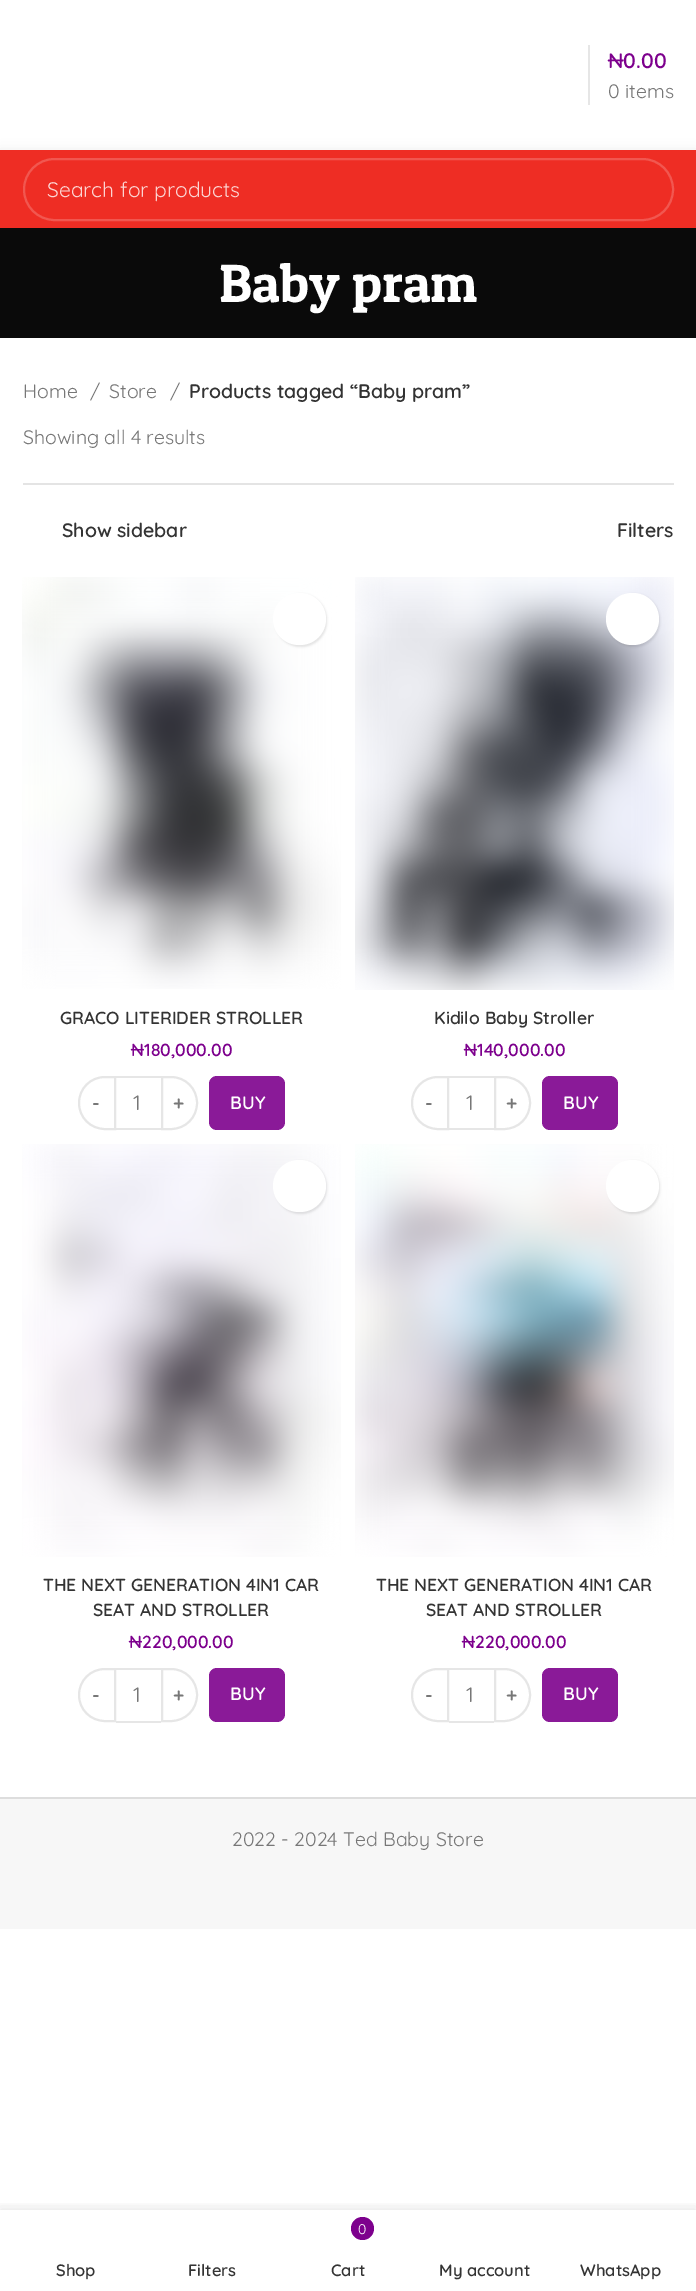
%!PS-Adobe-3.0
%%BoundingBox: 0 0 696 2291
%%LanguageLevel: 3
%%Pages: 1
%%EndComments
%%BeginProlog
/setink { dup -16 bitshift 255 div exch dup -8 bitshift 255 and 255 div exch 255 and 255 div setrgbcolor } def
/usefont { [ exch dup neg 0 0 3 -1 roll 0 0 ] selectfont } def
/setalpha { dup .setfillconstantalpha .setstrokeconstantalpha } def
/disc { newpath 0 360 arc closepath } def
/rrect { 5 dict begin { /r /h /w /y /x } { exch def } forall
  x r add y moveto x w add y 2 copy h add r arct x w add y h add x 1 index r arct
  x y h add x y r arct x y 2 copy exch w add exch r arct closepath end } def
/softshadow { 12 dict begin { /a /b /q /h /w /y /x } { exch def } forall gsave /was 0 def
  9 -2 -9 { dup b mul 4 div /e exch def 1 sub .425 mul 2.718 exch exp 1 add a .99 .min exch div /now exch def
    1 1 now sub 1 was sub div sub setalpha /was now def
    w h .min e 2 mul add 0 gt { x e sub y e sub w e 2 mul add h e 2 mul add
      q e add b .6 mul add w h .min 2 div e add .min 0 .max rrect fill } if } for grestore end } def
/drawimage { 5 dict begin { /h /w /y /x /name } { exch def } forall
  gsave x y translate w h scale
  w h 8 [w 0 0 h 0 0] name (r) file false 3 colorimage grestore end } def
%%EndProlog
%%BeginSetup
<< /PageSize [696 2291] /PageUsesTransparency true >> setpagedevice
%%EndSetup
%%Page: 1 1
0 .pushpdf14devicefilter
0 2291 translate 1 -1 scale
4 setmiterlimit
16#FFFFFF setink
0 0 696 2291 rectfill
16#E6E6E6 setink
588 45 2 60 rectfill
/Quicksand-SemiBold 21 usefont
16#7D008D setink
608 68 moveto (₦0.00) show
/Quicksand-Regular 19.5 usefont
16#777777 setink
608 98 moveto (0 items) show
16#0A0A0A setink
0 228 696 110 rectfill
16#000000 setink
0 152 696 78 0 6 0.1 softshadow
16#EE2D24 setink
0 150 696 78 rectfill
16#F15750 setink
2 setlinewidth
24 159 649 61 30.5 rrect stroke
/Quicksand-Regular 21 usefont
16#FCD5D3 setink
47 197 moveto (Search for products) show
/PatuaOne-Regular 54 usefont
16#FFFFFF setink
219 302 moveto (Baby pram) show
16#E4E4E4 setink
23 483 651 2 rectfill
/Quicksand-Regular 19.5 usefont
16#777777 setink
[
    [(Home) 23 398]
    [(/) 90 398]
    [(Store) 109 398]
    [(/) 170 398]
] { aload pop moveto show } forall
/Quicksand-SemiBold 19.5 usefont
16#333333 setink
189 398 moveto (Products tagged “Baby pram”) show
/Quicksand-Regular 19.5 usefont
16#777777 setink
23 444 moveto (Showing all 4 results) show
/Quicksand-SemiBold 19.5 usefont
16#333333 setink
62 537 moveto (Show sidebar) show
617 537 moveto (Filters) show
(img1.raw) 22 577 319 412 drawimage
16#000000 setink
275 594 52 53 26 1 0.1 softshadow
16#FFFFFF setink
273 593 53 52 26 rrect fill
/Quicksand-SemiBold 17.5 usefont
16#333333 setink
60 1024 moveto (GRACO LITERIDER STROLLER) show
16#7D008D setink
131 1056 moveto (₦180,000.00) show
16#E6E6E6 setink
105 1077 moveto 115 1077 lineto 115 1129 lineto 105 1129 lineto 90.5 1129 79 1117.5 79 1103 curveto 79 1088.5 90.5 1077 105 1077 curveto closepath stroke
/Quicksand-SemiBold 19.5 usefont
16#777777 setink
92 1110 moveto (-) show
16#E6E6E6 setink
116 1076 45 2 rectfill
116 1128 45 2 rectfill
/Quicksand-Regular 21 usefont
16#777777 setink
133 1110 moveto (1) show
16#E6E6E6 setink
162 1077 moveto 171 1077 lineto 185.5 1077 197 1088.5 197 1103 curveto 197 1117.5 185.5 1129 171 1129 curveto 162 1129 lineto closepath stroke
/Quicksand-SemiBold 19.5 usefont
16#777777 setink
173 1110 moveto (+) show
16#8A1A98 setink
209 1076 76 54 8 rrect fill
/Quicksand-SemiBold 18 usefont
16#FFFFFF setink
230 1109 moveto (BUY) show
(img2.raw) 355 577 319 413 drawimage
16#000000 setink
608 594 52 53 26 1 0.1 softshadow
16#FFFFFF setink
606 593 53 52 26 rrect fill
/Quicksand-SemiBold 17.5 usefont
16#333333 setink
434 1024 moveto (Kidilo Baby Stroller) show
16#7D008D setink
464 1056 moveto (₦140,000.00) show
16#E6E6E6 setink
438 1077 moveto 448 1077 lineto 448 1129 lineto 438 1129 lineto 423.5 1129 412 1117.5 412 1103 curveto 412 1088.5 423.5 1077 438 1077 curveto closepath stroke
/Quicksand-SemiBold 19.5 usefont
16#777777 setink
425 1110 moveto (-) show
16#E6E6E6 setink
449 1076 45 2 rectfill
449 1128 45 2 rectfill
/Quicksand-Regular 21 usefont
16#777777 setink
466 1110 moveto (1) show
16#E6E6E6 setink
495 1077 moveto 504 1077 lineto 518.5 1077 530 1088.5 530 1103 curveto 530 1117.5 518.5 1129 504 1129 curveto 495 1129 lineto closepath stroke
/Quicksand-SemiBold 19.5 usefont
16#777777 setink
506 1110 moveto (+) show
16#8A1A98 setink
542 1076 76 54 8 rrect fill
/Quicksand-SemiBold 18 usefont
16#FFFFFF setink
563 1109 moveto (BUY) show
(img3.raw) 22 1144 319 413 drawimage
16#000000 setink
275 1161 52 53 26 1 0.1 softshadow
16#FFFFFF setink
273 1160 53 52 26 rrect fill
/Quicksand-SemiBold 17.5 usefont
16#333333 setink
43 1591 moveto (THE NEXT GENERATION 4IN1 CAR) show
93 1616 moveto (SEAT AND STROLLER) show
16#7D008D setink
129 1648 moveto (₦220,000.00) show
16#E6E6E6 setink
105 1669 moveto 115 1669 lineto 115 1721 lineto 105 1721 lineto 90.5 1721 79 1709.5 79 1695 curveto 79 1680.5 90.5 1669 105 1669 curveto closepath stroke
/Quicksand-SemiBold 19.5 usefont
16#777777 setink
92 1702 moveto (-) show
16#E6E6E6 setink
116 1668 45 2 rectfill
116 1721 45 2 rectfill
/Quicksand-Regular 21 usefont
16#777777 setink
133 1702 moveto (1) show
16#E6E6E6 setink
162 1669 moveto 171 1669 lineto 185.5 1669 197 1680.5 197 1695 curveto 197 1709.5 185.5 1721 171 1721 curveto 162 1721 lineto closepath stroke
/Quicksand-SemiBold 19.5 usefont
16#777777 setink
173 1702 moveto (+) show
16#8A1A98 setink
209 1668 76 54 8 rrect fill
/Quicksand-SemiBold 18 usefont
16#FFFFFF setink
230 1700 moveto (BUY) show
(img4.raw) 355 1144 319 413 drawimage
16#000000 setink
608 1161 52 53 26 1 0.1 softshadow
16#FFFFFF setink
606 1160 53 52 26 rrect fill
/Quicksand-SemiBold 17.5 usefont
16#333333 setink
376 1591 moveto (THE NEXT GENERATION 4IN1 CAR) show
426 1616 moveto (SEAT AND STROLLER) show
16#7D008D setink
462 1648 moveto (₦220,000.00) show
16#E6E6E6 setink
438 1669 moveto 448 1669 lineto 448 1721 lineto 438 1721 lineto 423.5 1721 412 1709.5 412 1695 curveto 412 1680.5 423.5 1669 438 1669 curveto closepath stroke
/Quicksand-SemiBold 19.5 usefont
16#777777 setink
425 1702 moveto (-) show
16#E6E6E6 setink
449 1668 45 2 rectfill
449 1721 45 2 rectfill
/Quicksand-Regular 21 usefont
16#777777 setink
466 1702 moveto (1) show
16#E6E6E6 setink
495 1669 moveto 504 1669 lineto 518.5 1669 530 1680.5 530 1695 curveto 530 1709.5 518.5 1721 504 1721 curveto 495 1721 lineto closepath stroke
/Quicksand-SemiBold 19.5 usefont
16#777777 setink
506 1702 moveto (+) show
16#8A1A98 setink
542 1668 76 54 8 rrect fill
/Quicksand-SemiBold 18 usefont
16#FFFFFF setink
563 1700 moveto (BUY) show
16#F7F7F7 setink
0 1799 696 130 rectfill
16#DDDDDD setink
0 1797 696 2 rectfill
/Quicksand-Regular 19.5 usefont
16#777777 setink
232 1846 moveto (2022 - 2024 Ted Baby Store) show
gsave
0 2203 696 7 rectclip
16#000000 setink
0 2210 696 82 0 7 0.12 softshadow
grestore
/Quicksand-SemiBold 16.5 usefont
16#333333 setink
56 2276 moveto (Shop) show
188 2276 moveto (Filters) show
16#7D008D setink
362.5 2228.5 11.5 disc fill
/Quicksand-Regular 14 usefont
16#FFFFFF setink
358 2234 moveto (0) show
/Quicksand-SemiBold 16.5 usefont
16#333333 setink
[
    [(Cart) 331 2276]
    [(My account) 439 2276]
    [(WhatsApp) 580 2276]
] { aload pop moveto show } forall
.poppdf14devicefilter showpage
%%EOF
